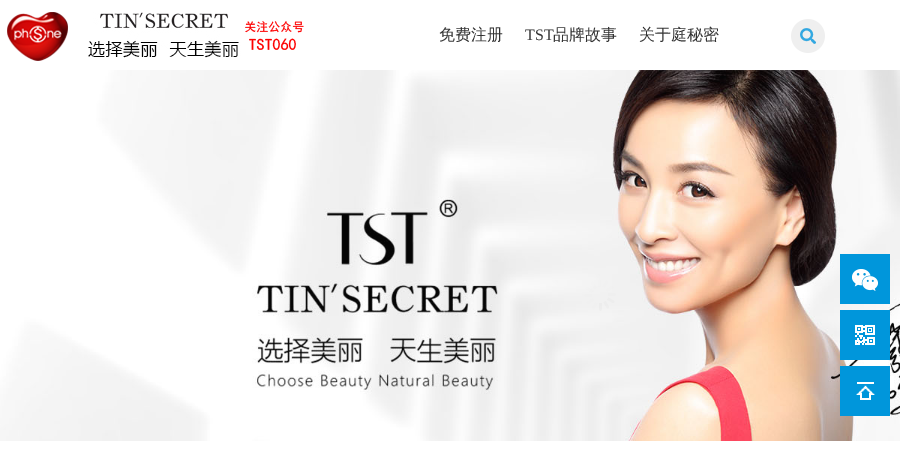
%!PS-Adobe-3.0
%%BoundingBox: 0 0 900 462
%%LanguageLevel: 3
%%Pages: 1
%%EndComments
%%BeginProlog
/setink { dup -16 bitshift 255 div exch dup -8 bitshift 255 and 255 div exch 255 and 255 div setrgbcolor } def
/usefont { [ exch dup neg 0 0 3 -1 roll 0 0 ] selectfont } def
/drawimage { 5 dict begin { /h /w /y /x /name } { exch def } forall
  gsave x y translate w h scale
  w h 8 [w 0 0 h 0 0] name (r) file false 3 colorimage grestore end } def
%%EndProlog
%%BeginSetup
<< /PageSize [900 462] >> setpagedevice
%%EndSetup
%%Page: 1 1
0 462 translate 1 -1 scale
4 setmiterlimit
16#FFFFFF setink
0 0 900 462 rectfill
(img1.raw) 7 12 61 49 drawimage
(img2.raw) 88 12 216 46 drawimage
/WenQuanYiZenHei-Medium 16 usefont
16#333333 setink
439 40 moveto (免费注册) show
/LiberationSerif-Regular 16 usefont
525 40 moveto (TST) show
/WenQuanYiZenHei-Medium 16 usefont
553 40 moveto (品牌故事) show
639 40 moveto (关于庭秘密) show
(img3.raw) 791 19 34 34 drawimage
(img4.raw) 584 279 32 32 drawimage
(img5.raw) 0 70 900 371 drawimage
(img6.raw) 840 254 50 50 drawimage
(img7.raw) 840 310 50 50 drawimage
(img8.raw) 840 366 50 50 drawimage
showpage
%%EOF
